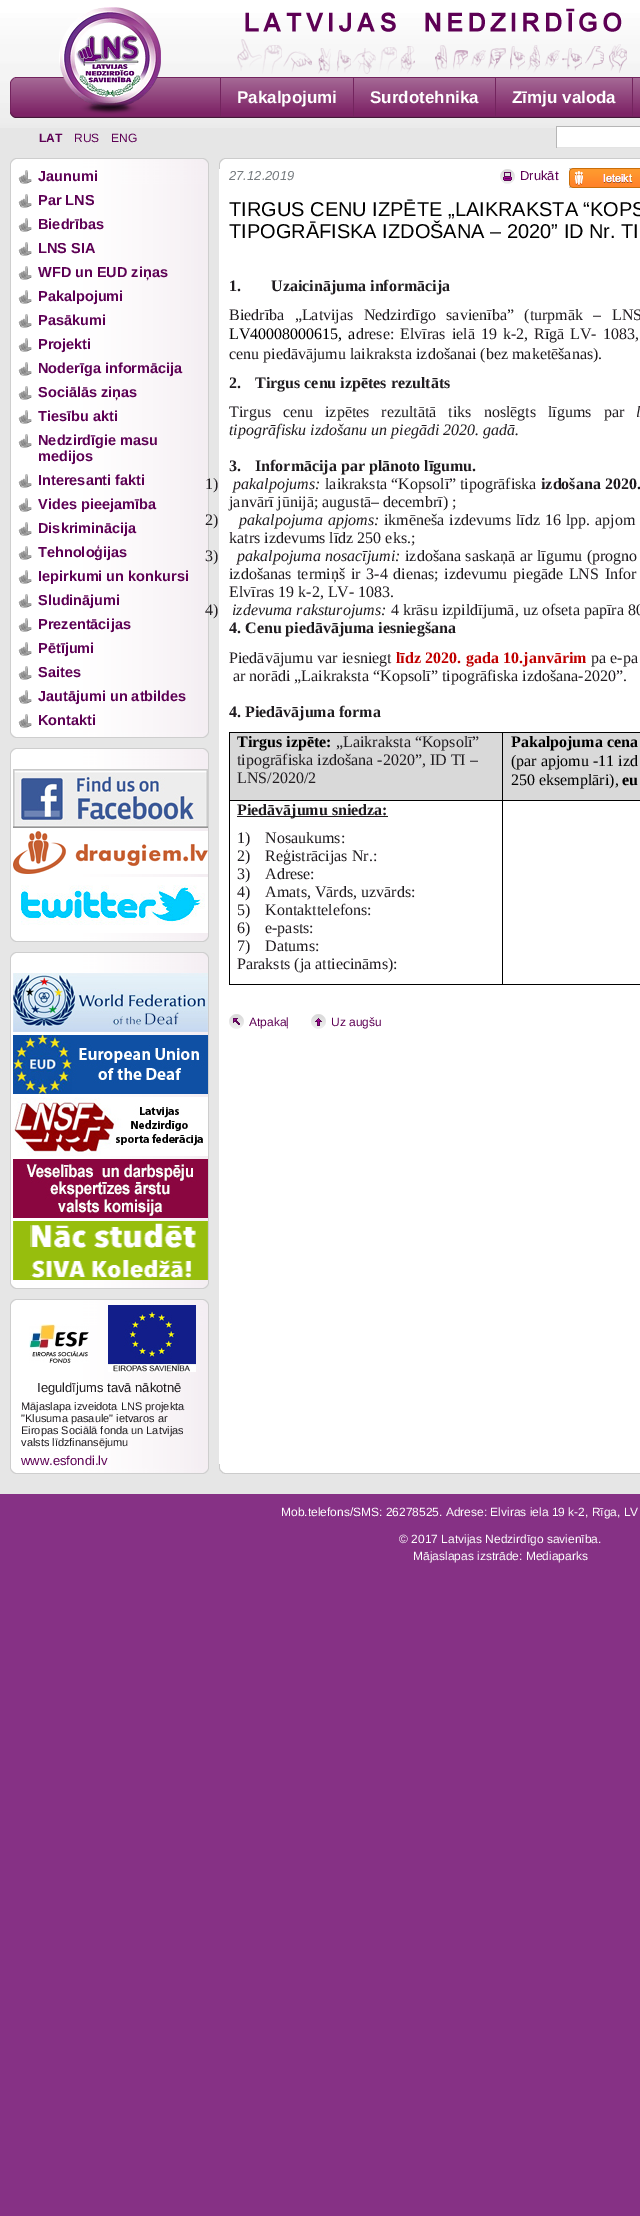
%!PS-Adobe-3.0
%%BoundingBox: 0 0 640 2216
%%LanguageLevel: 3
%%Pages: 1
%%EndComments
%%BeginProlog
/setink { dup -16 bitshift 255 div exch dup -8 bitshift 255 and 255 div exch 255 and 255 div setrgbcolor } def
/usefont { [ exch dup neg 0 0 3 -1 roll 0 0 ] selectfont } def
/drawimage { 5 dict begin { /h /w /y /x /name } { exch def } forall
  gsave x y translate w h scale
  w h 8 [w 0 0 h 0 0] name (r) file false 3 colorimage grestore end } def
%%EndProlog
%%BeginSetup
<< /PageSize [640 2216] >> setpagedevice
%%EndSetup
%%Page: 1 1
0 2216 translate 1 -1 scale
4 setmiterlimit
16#863185 setink
0 0 640 2216 rectfill
16#E6E6E6 setink
0 128 640 1366 rectfill
(img1.raw) 0 0 640 128 drawimage
(img2.raw) 237 8 390 66 drawimage
(img4.raw) 10 77 630 41 drawimage
(img3.raw) 59 7 102 107 drawimage
16#73245E setink
353 78 1 39 rectfill
220 78 1 39 rectfill
/LiberationSans-Bold 17 usefont
16#FFFFFF setink
237 103 moveto (Pakalpojumi) show
16#73245E setink
495 78 1 39 rectfill
16#FFFFFF setink
370 103 moveto (Surdotehnika) show
16#73245E setink
632 78 1 39 rectfill
16#FFFFFF setink
512 103 moveto (Zīmju valoda) show
/LiberationSans-Bold 12 usefont
16#5D0054 setink
39 142 moveto (LAT) show
/LiberationSans-Regular 12 usefont
74 142 moveto (RUS) show
111 142 moveto (ENG) show
[
    [557 127 83 20 16#FFFFFF]
    [556 126 84 1 16#B6B6B6]
    [556 147 84 1 16#E3E3E3]
    [556 126 1 22 16#B6B6B6]
    [219 169 421 1295 16#FFFFFF]
] { aload pop setink rectfill } forall
(img5.raw) 219 1464 421 10 drawimage
(img6.raw) 10 158 199 574 drawimage
(img7.raw) 10 732 199 6 drawimage
(img8.raw) 18 170 14 14 drawimage
/LiberationSans-Bold 14.5 usefont
16#5D0054 setink
38 181 moveto (Jaunumi) show
(img8.raw) 18 194 14 14 drawimage
38 205 moveto (Par LNS) show
(img8.raw) 18 218 14 14 drawimage
38 229 moveto (Biedrības) show
(img8.raw) 18 242 14 14 drawimage
38 253 moveto (LNS SIA) show
(img8.raw) 18 266 14 14 drawimage
38 277 moveto (WFD un EUD ziņas) show
(img8.raw) 18 290 14 14 drawimage
38 301 moveto (Pakalpojumi) show
(img8.raw) 18 314 14 14 drawimage
38 325 moveto (Pasākumi) show
(img8.raw) 18 338 14 14 drawimage
38 349 moveto (Projekti) show
(img8.raw) 18 362 14 14 drawimage
38 373 moveto (Noderīga informācija) show
(img8.raw) 18 386 14 14 drawimage
38 397 moveto (Sociālās ziņas) show
(img8.raw) 18 410 14 14 drawimage
38 421 moveto (Tiesību akti) show
(img8.raw) 18 434 14 14 drawimage
38 445 moveto (Nedzirdīgie masu) show
38 461 moveto (medijos) show
(img8.raw) 18 474 14 14 drawimage
38 485 moveto (Interesanti fakti) show
(img8.raw) 18 498 14 14 drawimage
38 509 moveto (Vides pieejamība) show
(img8.raw) 18 522 14 14 drawimage
38 533 moveto (Diskriminācija) show
(img8.raw) 18 546 14 14 drawimage
38 557 moveto (Tehnoloģijas) show
(img8.raw) 18 570 14 14 drawimage
38 581 moveto (Iepirkumi un konkursi) show
(img8.raw) 18 594 14 14 drawimage
38 605 moveto (Sludinājumi) show
(img8.raw) 18 618 14 14 drawimage
38 629 moveto (Prezentācijas) show
(img8.raw) 18 642 14 14 drawimage
38 653 moveto (Pētījumi) show
(img8.raw) 18 666 14 14 drawimage
38 677 moveto (Saites) show
(img8.raw) 18 690 14 14 drawimage
38 701 moveto (Jautājumi un atbildes) show
(img8.raw) 18 714 14 14 drawimage
38 725 moveto (Kontakti) show
(img9.raw) 10 748 199 188 drawimage
(img7.raw) 10 936 199 6 drawimage
(img10.raw) 13 769 195 59 drawimage
(img11.raw) 13 831 195 43 drawimage
(img12.raw) 21 877 187 56 drawimage
(img13.raw) 10 952 199 331 drawimage
(img7.raw) 10 1283 199 6 drawimage
(img14.raw) 13 973 195 59 drawimage
(img15.raw) 13 1035 195 59 drawimage
(img16.raw) 13 1097 195 59 drawimage
(img17.raw) 13 1159 195 59 drawimage
(img18.raw) 13 1221 195 59 drawimage
(img19.raw) 10 1299 199 169 drawimage
(img7.raw) 10 1468 199 6 drawimage
(img20.raw) 29 1324 60 39 drawimage
(img21.raw) 108 1305 88 67 drawimage
/LiberationSans-Regular 13 usefont
16#201C20 setink
37 1392 moveto (Ieguldījums tavā nākotnē) show
/LiberationSans-Regular 11 usefont
[
    [(Mājaslapa izveidota LNS projekta) 21 1410]
    [("Klusuma pasaule" ietvaros ar) 21 1422]
    [(Eiropas Sociālā fonda un Latvijas) 21 1434]
    [(valsts līdzfinansējumu) 21 1446]
] { aload pop moveto show } forall
/LiberationSans-Regular 13 usefont
16#5D0054 setink
21 1465 moveto (www.esfondi.lv) show
(img22.raw) 219 158 421 11 drawimage
/LiberationSans-Italic 13 usefont
16#767B7F setink
229 180 moveto (27.12.2019) show
(img23.raw) 500 169 15 15 drawimage
/LiberationSans-Regular 13 usefont
16#5D0054 setink
520 180 moveto (Drukāt) show
(img24.raw) 569 168 71 20 drawimage
/LiberationSans-Regular 20 usefont
16#000000 setink
229 216 moveto (TIRGUS CENU IZPĒTE „LAIKRAKSTA “KOPS) show
229 238 moveto (TIPOGRĀFISKA IZDOŠANA – 2020” ID Nr. TI) show
/LiberationSerif-Bold 16 usefont
16#201C20 setink
229 291 moveto (1.) show
271 291 moveto (Uzaicinājuma informācija) show
/LiberationSerif-Regular 16 usefont
229 320 moveto 6.5 0 32 (Biedrība „Latvijas Nedzirdīgo savienība” \(turpmāk – LNS) widthshow
16#000000 setink
229 339 moveto 2 0 32 (LV40008000615, a) widthshow
16#201C20 setink
356 339 moveto 2 0 32 (drese: Elvīras ielā 19 k-2, Rīgā LV- 1083,) widthshow
229 359 moveto (cenu piedāvājumu laikraksta izdošanai \(bez maketēšanas\).) show
/LiberationSerif-Bold 16 usefont
229 388 moveto (2.) show
255 388 moveto (Tirgus cenu izpētes rezultāts) show
/LiberationSerif-Regular 16 usefont
229 417 moveto 8 0 32 (Tirgus cenu izpētes rezultātā tiks noslēgts līgums par) widthshow
/LiberationSerif-Italic 16 usefont
636 417 moveto 8 0 32 (l) widthshow
229 435 moveto (tipogrāfisku izdošanu un piegādi 2020. gadā.) show
/LiberationSerif-Bold 16 usefont
229 471 moveto (3.) show
255 471 moveto (Informācija par plānoto līgumu.) show
/LiberationSerif-Regular 16 usefont
205 489 moveto (1\)) show
/LiberationSerif-Italic 16 usefont
233 489 moveto (pakalpojums:) show
/LiberationSerif-Regular 16 usefont
325 489 moveto (laikraksta “Kopsolī”) show
460 489 moveto (tipogrāfiska) show
/LiberationSerif-Bold 16 usefont
541 489 moveto (izdošana 2020.) show
/LiberationSerif-Regular 16 usefont
229 507 moveto (janvārī jūnijā; augustā– decembrī\) ;) show
205 525 moveto (2\)) show
/LiberationSerif-Italic 16 usefont
239 525 moveto 1 0 32 (pakalpojuma apjoms:) widthshow
/LiberationSerif-Regular 16 usefont
384 525 moveto 1 0 32 (ikmēneša izdevums līdz 16 lpp. apjom) widthshow
229 543 moveto (katrs izdevums līdz 250 eks.;) show
205 561 moveto (3\)) show
/LiberationSerif-Italic 16 usefont
237 561 moveto 0.5 0 32 (pakalpojuma nosacījumi:) widthshow
/LiberationSerif-Regular 16 usefont
405 561 moveto 0.5 0 32 (izdošana saskaņā ar līgumu \(progno) widthshow
229 579 moveto 1.75 0 32 (izdošanas termiņš ir 3-4 dienas; izdevumu piegāde LNS Infor) widthshow
229 597 moveto (Elvīras 19 k-2, LV- 1083.) show
205 615 moveto (4\)) show
/LiberationSerif-Italic 16 usefont
232 615 moveto (izdevuma raksturojums:) show
/LiberationSerif-Regular 16 usefont
391 615 moveto (4 krāsu izpildījumā, uz ofseta papīra 80) show
/LiberationSerif-Bold 16 usefont
229 633 moveto (4. Cenu piedāvājuma iesniegšana) show
/LiberationSerif-Regular 16 usefont
229 663 moveto 0.5 0 32 (Piedāvājumu var iesniegt) widthshow
/LiberationSerif-Bold 16 usefont
16#C00000 setink
396 663 moveto 0.5 0 32 (līdz 2020. gada 10.janvārim) widthshow
/LiberationSerif-Regular 16 usefont
16#201C20 setink
591 663 moveto (pa e-pa) show
233 681 moveto (ar norādi „Laikraksta “Kopsolī” tipogrāfiska izdošana-2020”.) show
/LiberationSerif-Bold 16 usefont
229 717 moveto (4. Piedāvājuma forma) show
[
    [230 733 272 67 16#D9D9D9]
    [229 732 411 1 16#000000]
    [502 984 138 1 16#000000]
    [502 800 1 185 16#000000]
    [502 800 138 1 16#000000]
    [502 732 1 69 16#000000]
    [229 984 274 1 16#000000]
    [229 800 1 185 16#000000]
    [229 800 274 1 16#000000]
    [229 732 1 69 16#000000]
] { aload pop setink rectfill } forall
237 747 moveto (Tirgus izpēte:) show
/LiberationSerif-Regular 16 usefont
16#201C20 setink
[
    [(„Laikraksta “Kopsolī”) 336 747]
    [(tipogrāfiska izdošana -2020”, ID TI –) 237 765]
    [(LNS/2020/2) 237 783]
] { aload pop moveto show } forall
16#D9D9D9 setink
503 733 137 67 rectfill
/LiberationSerif-Bold 16 usefont
16#000000 setink
511 747 moveto (Pakalpojuma cena) show
/LiberationSerif-Regular 16 usefont
511 766 moveto (\(par apjomu -11 izd) show
511 785 moveto (250 eksemplāri\),) show
/LiberationSerif-Bold 16 usefont
622 785 moveto (eu) show
16#201C20 setink
237 816 151 1 rectfill
237 815 moveto (Piedāvājumu sniedza:) show
/LiberationSerif-Regular 16 usefont
[
    [(1\)) 237 843]
    [(Nosaukums:) 265 843]
    [(2\)) 237 861]
    [(Reģistrācijas Nr.:) 265 861]
    [(3\)) 237 879]
    [(Adrese:) 265 879]
    [(4\)) 237 897]
    [(Amats, Vārds, uzvārds:) 265 897]
    [(5\)) 237 915]
    [(Kontakttelefons:) 265 915]
    [(6\)) 237 933]
    [(e-pasts:) 265 933]
    [(7\)) 237 951]
    [(Datums:) 265 951]
    [(Paraksts \(ja attiecināms\):) 237 969]
] { aload pop moveto show } forall
(img25.raw) 229 1014 15 15 drawimage
/LiberationSans-Regular 12 usefont
16#5D0054 setink
249 1026 moveto (Atpakaļ) show
(img26.raw) 311 1014 15 15 drawimage
331 1026 moveto (Uz augšu) show
16#FFFFFF setink
[
    [(Mob.telefons/SMS: 26278525. Adrese: Elviras iela 19 k-2, Rīga, LV) 281 1516]
    [(© 2017 Latvijas Nedzirdīgo savienība.) 399 1543]
    [(Mājaslapas izstrāde: Mediaparks) 413 1560]
] { aload pop moveto show } forall
showpage
%%EOF
